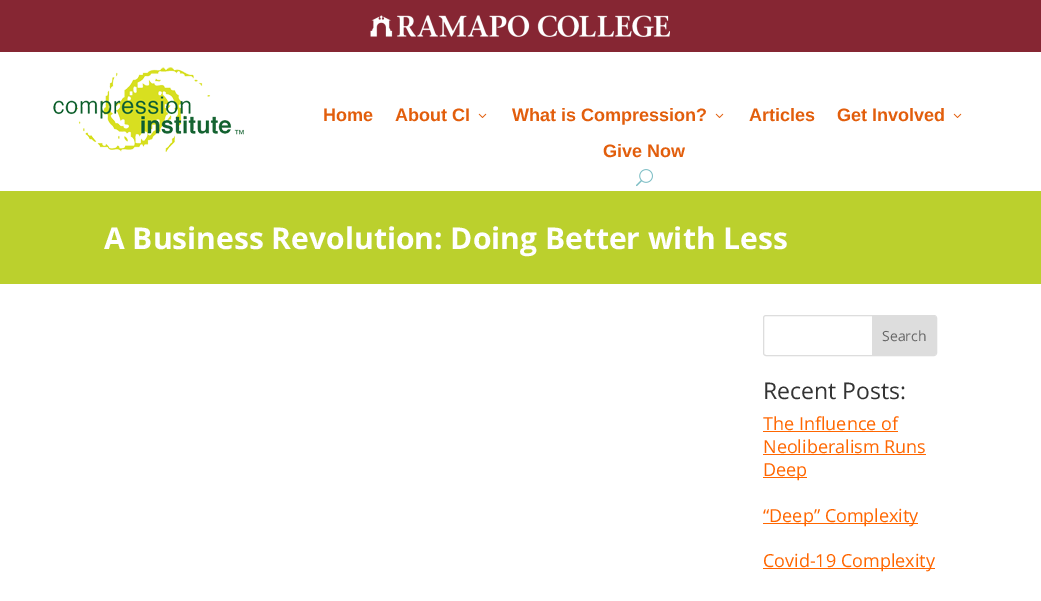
%!PS-Adobe-3.0
%%BoundingBox: 0 0 1041 601
%%LanguageLevel: 3
%%Pages: 1
%%EndComments
%%BeginProlog
/setink { dup -16 bitshift 255 div exch dup -8 bitshift 255 and 255 div exch 255 and 255 div setrgbcolor } def
/usefont { [ exch dup neg 0 0 3 -1 roll 0 0 ] selectfont } def
/rrect { 5 dict begin { /r /h /w /y /x } { exch def } forall
  x r add y moveto x w add y 2 copy h add r arct x w add y h add x 1 index r arct
  x y h add x y r arct x y 2 copy exch w add exch r arct closepath end } def
/drawimage { 5 dict begin { /h /w /y /x /name } { exch def } forall
  gsave x y translate w h scale
  w h 8 [w 0 0 h 0 0] name (r) file false 3 colorimage grestore end } def
%%EndProlog
%%BeginSetup
<< /PageSize [1041 601] >> setpagedevice
%%EndSetup
%%Page: 1 1
0 601 translate 1 -1 scale
4 setmiterlimit
16#FFFFFF setink
0 0 1041 601 rectfill
16#862633 setink
0 0 1041 52 rectfill
(img1.raw) 370 15 300 22 drawimage
(img2.raw) 53 67 191 85 drawimage
/LiberationSans-Bold 18 usefont
16#E25E0C setink
323 121 moveto (Home) show
395 121 moveto (About CI) show
(img3.raw) 478 113 9 5 drawimage
512 121 moveto (What is Compression?) show
(img3.raw) 715 113 9 5 drawimage
749 121 moveto (Articles) show
837 121 moveto (Get Involved) show
(img3.raw) 953 113 9 5 drawimage
603 157 moveto (Give Now) show
(img4.raw) 636 169 17 18 drawimage
16#BBD02D setink
0 191 1041 93 rectfill
/OpenSans-Bold 30 usefont
16#FFFFFF setink
104 249 moveto (A Business Revolution: Doing Better with Less) show
16#DDDDDD setink
763.5 315.5 173 40 2.5 rrect stroke
872 316 moveto 934 316 lineto 935 316 936 317 936 318 curveto 936 353 lineto 936 354 935 355 934 355 curveto 872 355 lineto closepath fill
/OpenSans-Regular 14 usefont
16#666666 setink
882 341 moveto (Search) show
/OpenSans-Regular 23 usefont
16#333333 setink
763 399 moveto (Recent Posts:) show
/OpenSans-Regular 18 usefont
16#FF6600 setink
763 430 moveto (The Influence of) show
763 431 135 1 rectfill
763 453 moveto (Neoliberalism Runs) show
763 454 163 1 rectfill
763 477 44 1 rectfill
763 476 moveto (Deep) show
763 523 155 1 rectfill
763 522 moveto (“Deep” Complexity) show
763 568 172 1 rectfill
763 567 moveto (Covid-19 Complexity) show
showpage
%%EOF
